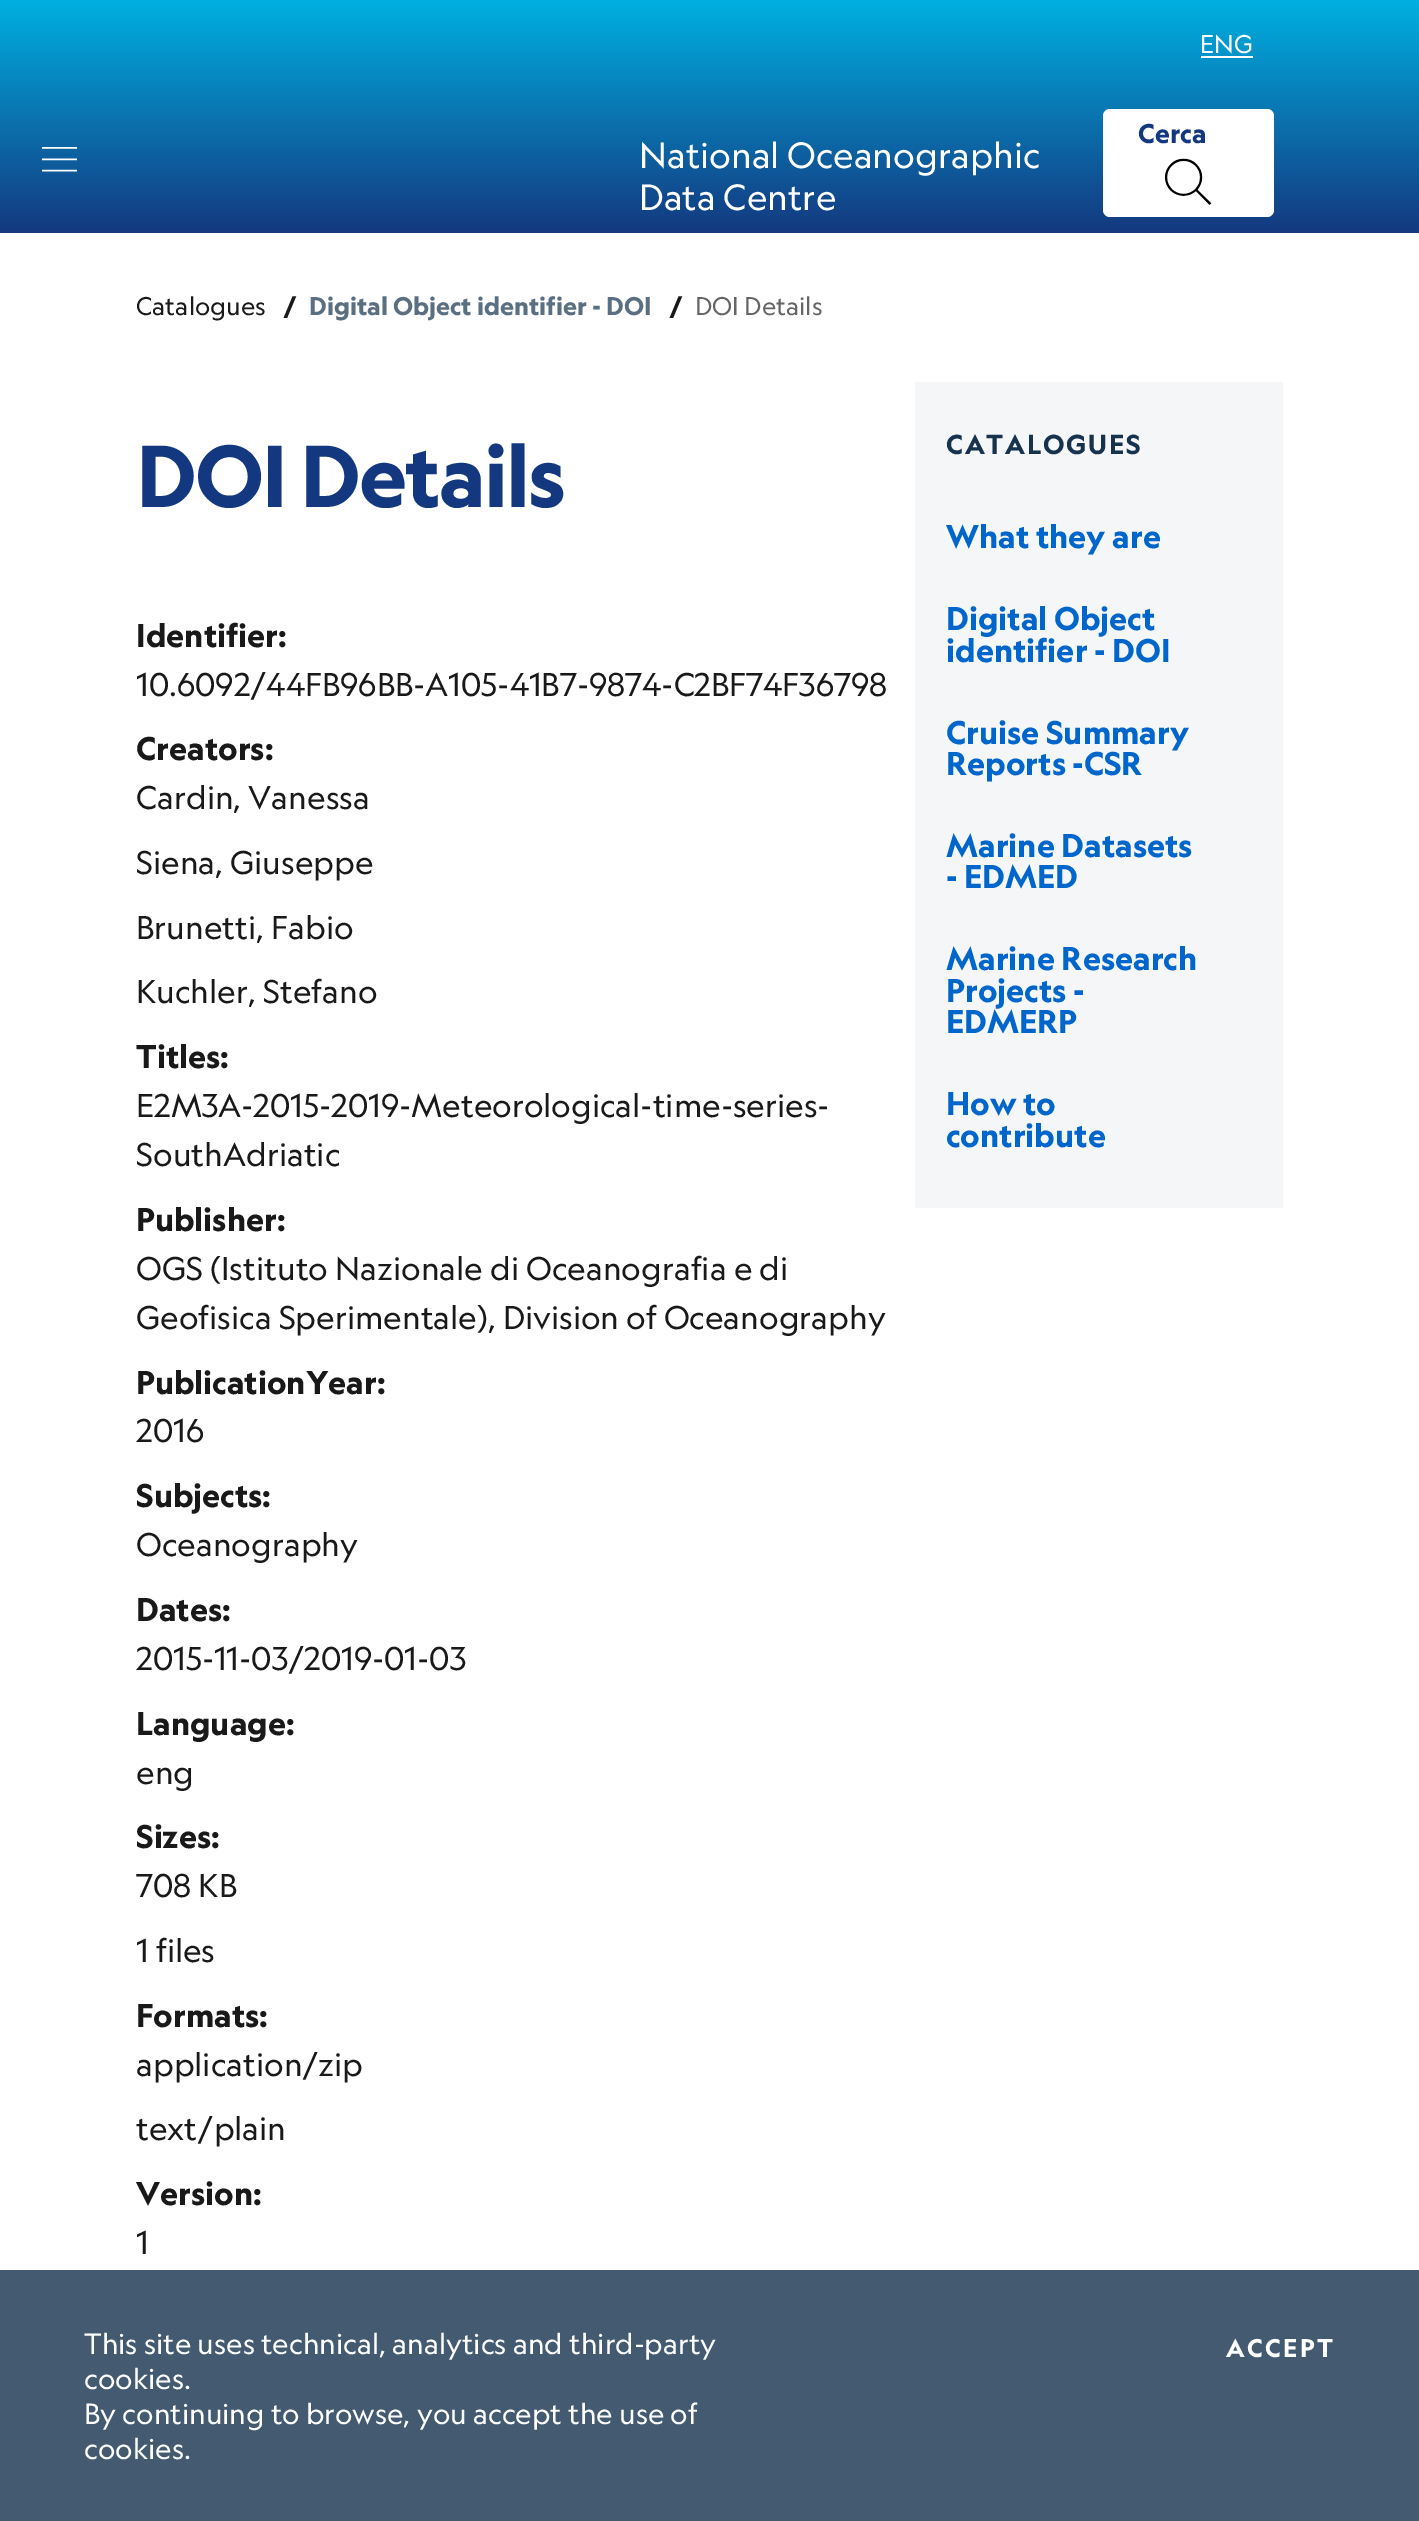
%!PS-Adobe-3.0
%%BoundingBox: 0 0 1419 2521
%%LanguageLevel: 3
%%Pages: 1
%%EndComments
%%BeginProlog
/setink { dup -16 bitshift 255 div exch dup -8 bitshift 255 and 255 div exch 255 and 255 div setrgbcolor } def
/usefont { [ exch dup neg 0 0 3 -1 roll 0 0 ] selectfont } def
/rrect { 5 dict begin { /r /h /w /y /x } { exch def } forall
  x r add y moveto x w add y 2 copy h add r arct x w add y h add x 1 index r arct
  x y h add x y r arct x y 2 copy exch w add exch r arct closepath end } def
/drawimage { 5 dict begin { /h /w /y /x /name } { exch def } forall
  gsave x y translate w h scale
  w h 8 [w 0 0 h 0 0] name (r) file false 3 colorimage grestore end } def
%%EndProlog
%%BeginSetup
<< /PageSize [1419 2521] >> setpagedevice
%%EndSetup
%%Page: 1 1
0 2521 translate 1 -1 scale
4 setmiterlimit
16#FFFFFF setink
0 0 1419 2521 rectfill
gsave 0 0 moveto 1419 0 lineto 1419 233 lineto 0 233 lineto closepath clip newpath
<< /ShadingType 2 /ColorSpace /DeviceRGB /Coords [710 0 710 233] /Extend [true true] /Function << /FunctionType 2 /Domain [0 1] /C0 [0 0.69 0.882] /C1 [0.078 0.22 0.498] /N 1 >> >> shfill grestore
/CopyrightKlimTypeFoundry-Regular 24.5 usefont
1200 53 moveto (ENG) show
1201 56 52 2 rectfill
(img1.raw) 42 147 35 25 drawimage
1103 109 171 108 7 rrect fill
/CopyrightKlimTypeFoundry-Bold 26 usefont
16#143880 setink
1138 143 moveto (Cerca) show
(img2.raw) 1164 158 48 47 drawimage
/CopyrightKlimTypeFoundry-Regular 35 usefont
16#FFFFFF setink
639 168 moveto (National Oceanographic) show
639 210 moveto (Data Centre) show
/CopyrightKlimTypeFoundry-Regular 24.5 usefont
16#19191A setink
136 315 moveto (Catalogues) show
/CopyrightKlimTypeFoundry-Bold 24.5 usefont
283 315 moveto (/) show
16#5B6F82 setink
309 315 moveto (Digital Object identifier - DOI) show
16#19191A setink
669 315 moveto (/) show
/CopyrightKlimTypeFoundry-Regular 24.5 usefont
16#656566 setink
695 315 moveto (DOI Details) show
/CopyrightKlimTypeFoundry-Bold 84 usefont
16#143880 setink
136 507 moveto -2.1 0 (DOI Details) ashow
/CopyrightKlimTypeFoundry-Bold 31.5 usefont
16#19191A setink
136 647 moveto (Identifier:) show
/CopyrightKlimTypeFoundry-Regular 31.5 usefont
136 696 moveto (10.6092/44FB96BB-A105-41B7-9874-C2BF74F36798) show
/CopyrightKlimTypeFoundry-Bold 31.5 usefont
136 760 moveto (Creators:) show
/CopyrightKlimTypeFoundry-Regular 31.5 usefont
[
    [(Cardin, Vanessa) 136 809]
    [(Siena, Giuseppe) 136 874]
    [(Brunetti, Fabio) 136 939]
    [(Kuchler, Stefano) 136 1003]
] { aload pop moveto show } forall
/CopyrightKlimTypeFoundry-Bold 31.5 usefont
136 1068 moveto (Titles:) show
/CopyrightKlimTypeFoundry-Regular 31.5 usefont
136 1117 moveto (E2M3A-2015-2019-Meteorological-time-series-) show
136 1166 moveto (SouthAdriatic) show
/CopyrightKlimTypeFoundry-Bold 31.5 usefont
136 1231 moveto (Publisher:) show
/CopyrightKlimTypeFoundry-Regular 31.5 usefont
136 1280 moveto (OGS \(Istituto Nazionale di Oceanografia e di) show
136 1329 moveto (Geofisica Sperimentale\), Division of Oceanography) show
/CopyrightKlimTypeFoundry-Bold 31.5 usefont
136 1394 moveto (PublicationYear:) show
/CopyrightKlimTypeFoundry-Regular 31.5 usefont
136 1442 moveto (2016) show
/CopyrightKlimTypeFoundry-Bold 31.5 usefont
136 1507 moveto (Subjects:) show
/CopyrightKlimTypeFoundry-Regular 31.5 usefont
136 1556 moveto (Oceanography) show
/CopyrightKlimTypeFoundry-Bold 31.5 usefont
136 1621 moveto (Dates:) show
/CopyrightKlimTypeFoundry-Regular 31.5 usefont
136 1670 moveto (2015-11-03/2019-01-03) show
/CopyrightKlimTypeFoundry-Bold 31.5 usefont
136 1735 moveto (Language:) show
/CopyrightKlimTypeFoundry-Regular 31.5 usefont
136 1784 moveto (eng) show
/CopyrightKlimTypeFoundry-Bold 31.5 usefont
136 1848 moveto (Sizes:) show
/CopyrightKlimTypeFoundry-Regular 31.5 usefont
136 1897 moveto (708 KB) show
136 1962 moveto (1 files) show
/CopyrightKlimTypeFoundry-Bold 31.5 usefont
136 2027 moveto (Formats:) show
/CopyrightKlimTypeFoundry-Regular 31.5 usefont
136 2076 moveto (application/zip) show
136 2140 moveto (text/plain) show
/CopyrightKlimTypeFoundry-Bold 31.5 usefont
136 2205 moveto (Version:) show
/CopyrightKlimTypeFoundry-Regular 31.5 usefont
136 2254 moveto (1) show
16#F5F6F7 setink
915 382 368 826 rectfill
/CopyrightKlimTypeFoundry-Bold 26.25 usefont
16#17324D setink
946 454 moveto 1.75 0 (CATALOGUES) ashow
/CopyrightKlimTypeFoundry-Bold 31.5 usefont
16#0066CC setink
[
    [(What they are) 946 548]
    [(Digital Object) 946 630]
    [(identifier - DOI) 946 662]
    [(Cruise Summary) 946 744]
    [(Reports -CSR) 946 775]
    [(Marine Datasets) 946 857]
    [(- EDMED) 946 888]
    [(Marine Research) 946 970]
    [(Projects -) 946 1002]
    [(EDMERP) 946 1033]
    [(How to) 946 1115]
    [(contribute) 946 1147]
] { aload pop moveto show } forall
16#435A70 setink
0 2270 1419 251 rectfill
/CopyrightKlimTypeFoundry-Regular 28 usefont
16#FFFFFF setink
[
    [(This site uses technical, analytics and third-party) 84 2354]
    [(cookies.) 84 2389]
    [(By continuing to browse, you accept the use of) 84 2424]
    [(cookies.) 84 2459]
] { aload pop moveto show } forall
/CopyrightKlimTypeFoundry-Bold 24.5 usefont
1226 2357 moveto 2.5 0 (ACCEPT) ashow
showpage
%%EOF
